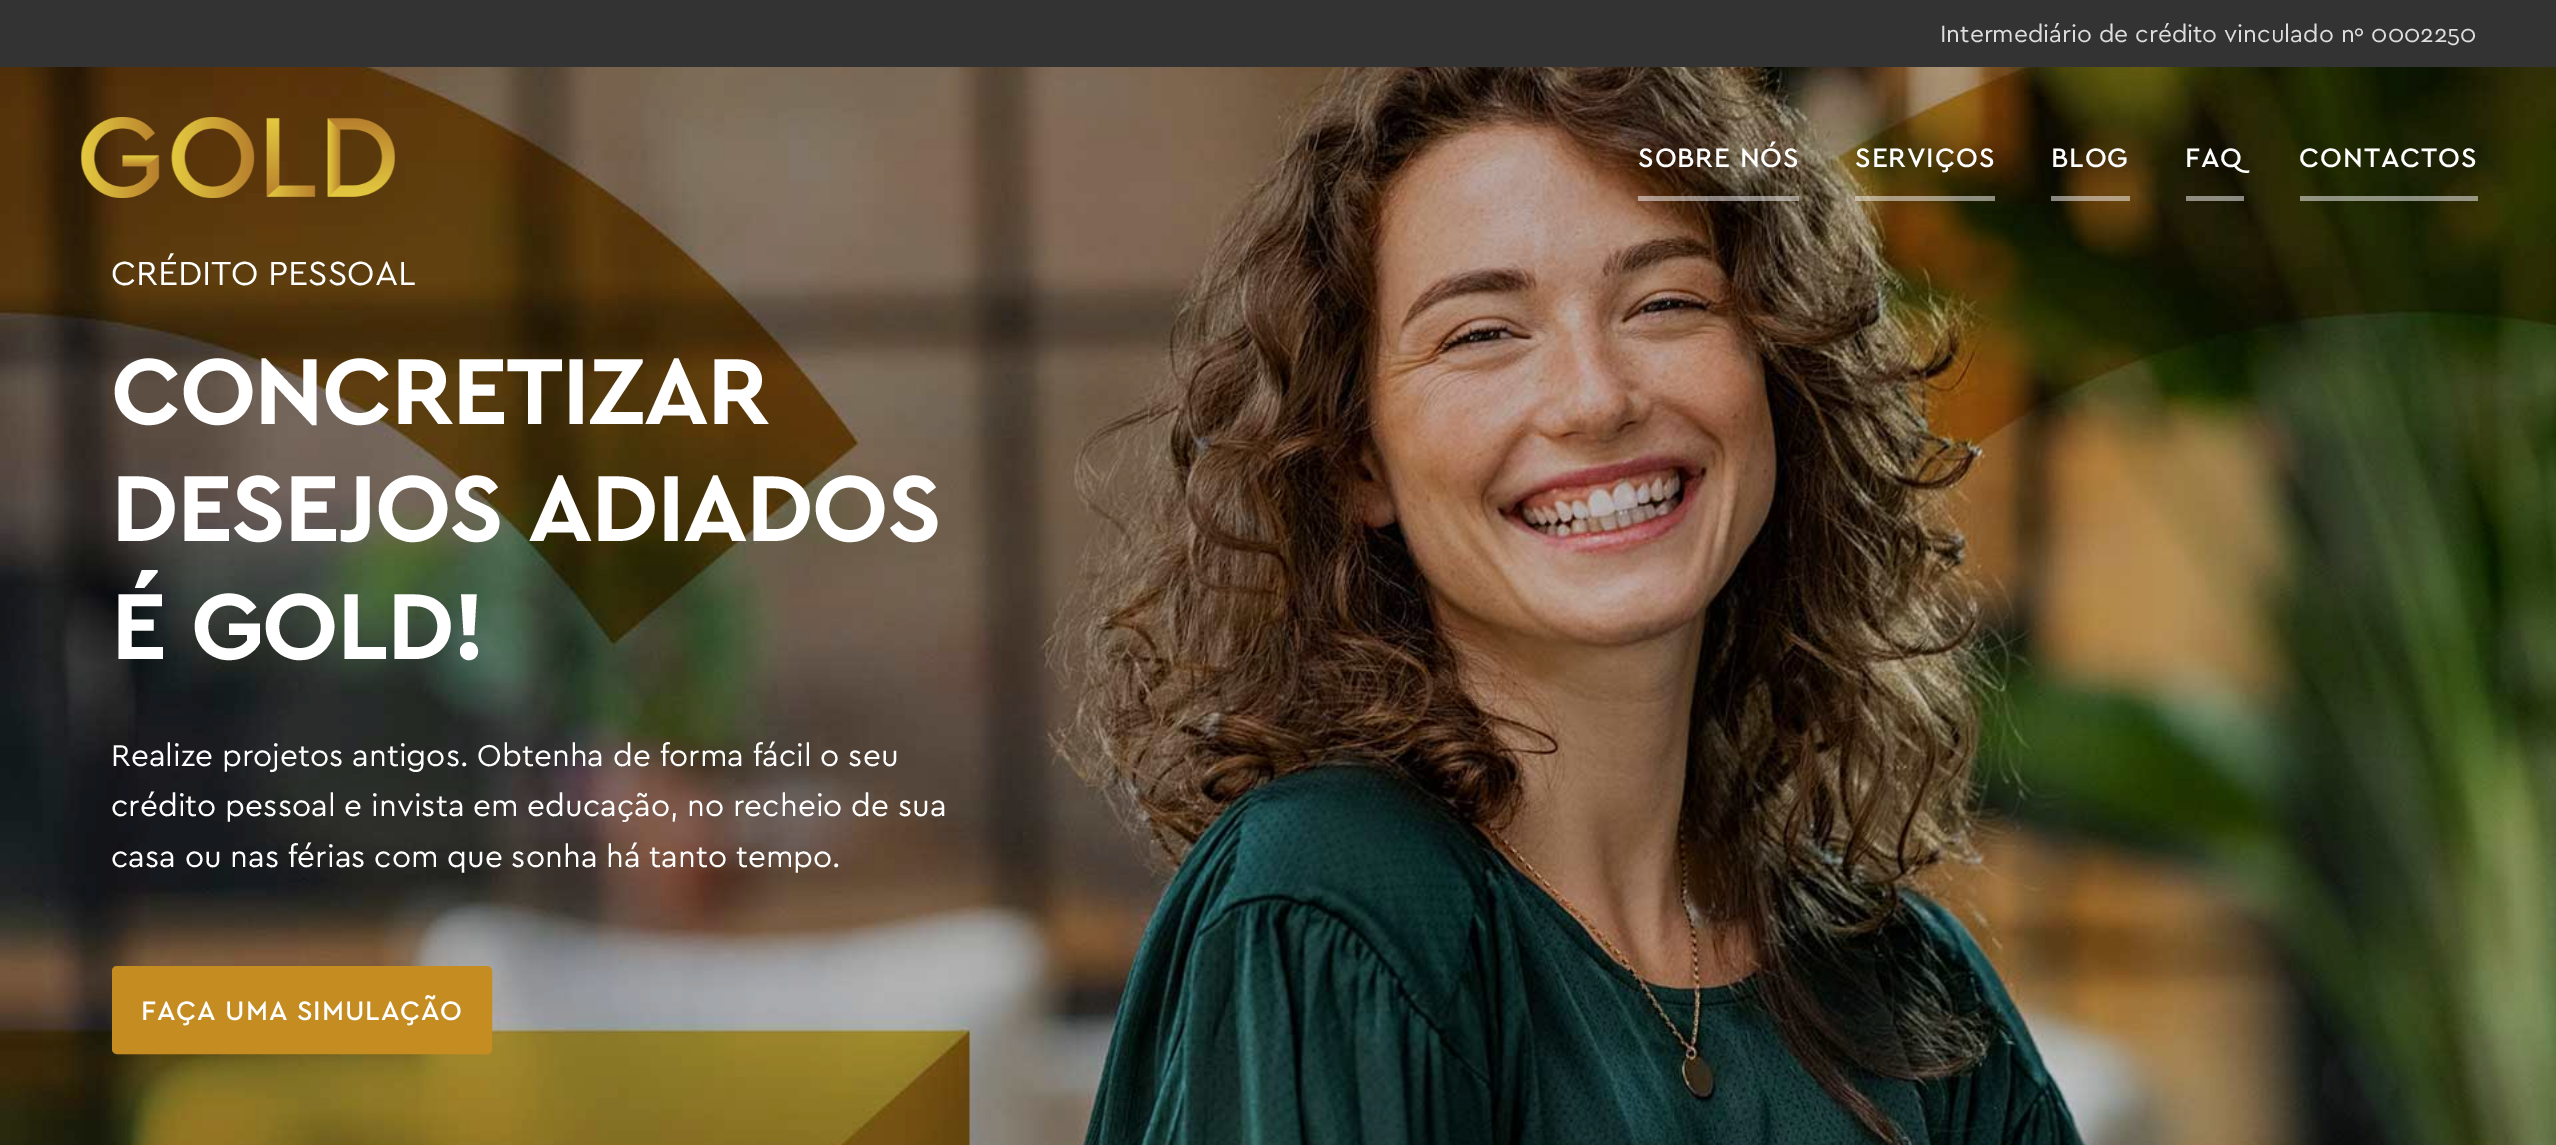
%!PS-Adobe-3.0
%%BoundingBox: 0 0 2556 1145
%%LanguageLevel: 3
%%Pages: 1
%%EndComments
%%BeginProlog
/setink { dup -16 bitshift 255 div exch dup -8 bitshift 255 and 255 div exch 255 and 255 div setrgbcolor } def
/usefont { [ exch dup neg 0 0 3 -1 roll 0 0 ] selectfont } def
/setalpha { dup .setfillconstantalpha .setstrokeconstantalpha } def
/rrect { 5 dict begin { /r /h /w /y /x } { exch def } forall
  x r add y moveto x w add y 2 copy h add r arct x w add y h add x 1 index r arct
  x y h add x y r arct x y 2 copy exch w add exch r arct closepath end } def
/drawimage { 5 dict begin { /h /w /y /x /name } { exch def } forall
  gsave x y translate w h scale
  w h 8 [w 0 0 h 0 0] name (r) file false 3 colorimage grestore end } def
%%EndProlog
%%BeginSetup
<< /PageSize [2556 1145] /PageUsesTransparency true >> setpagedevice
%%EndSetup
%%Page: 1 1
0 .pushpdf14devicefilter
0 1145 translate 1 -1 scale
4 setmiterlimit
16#FFFFFF setink
0 0 2556 1145 rectfill
16#333333 setink
0 0 2556 67 rectfill
/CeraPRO-Regular 24.5 usefont
16#DDDDDD setink
1940 42 moveto (Intermediário de crédito vinculado nº 0002250) show
(img2.raw) 0 67 2556 1078 drawimage
(img1.raw) 81 117 314 81 drawimage
/CeraPRO-Medium 28 usefont
16#FFFFFF setink
1638 167 moveto 0.9 0 (SOBRE NÓS) ashow
0.5 setalpha
1638 196 161 5 rectfill
1 setalpha
1855 167 moveto 0.9 0 (SERVIÇOS) ashow
0.5 setalpha
1855 196 140 5 rectfill
1 setalpha
2051 167 moveto 0.9 0 (BLOG) ashow
0.5 setalpha
2051 196 79 5 rectfill
1 setalpha
2185 167 moveto 0.9 0 (FAQ) ashow
0.5 setalpha
2186 196 58 5 rectfill
1 setalpha
2299 167 moveto 0.9 0 (CONTACTOS) ashow
0.5 setalpha
2300 196 178 5 rectfill
/CeraPRO-Regular 35 usefont
1 setalpha
111 285 moveto (CRÉDITO PESSOAL) show
/CeraPRO-Bold 98 usefont
111 424 moveto -1.75 0 (CONCRETIZAR) ashow
111 541 moveto -1.75 0 (DESEJOS ADIADOS) ashow
111 659 moveto -1.75 0 (É GOLD!) ashow
/CeraPRO-Regular 31.5 usefont
[
    [(Realize projetos antigos. Obtenha de forma fácil o seu) 111 766]
    [(crédito pessoal e invista em educação, no recheio de sua) 111 816]
    [(casa ou nas férias com que sonha há tanto tempo.) 111 867]
] { aload pop moveto show } forall
16#C48C21 setink
113 967 378 86 4 rrect gsave fill grestore
2 setlinewidth
stroke
/CeraPRO-Medium 28 usefont
16#FFFFFF setink
141 1020 moveto 0.9 0 (FAÇA UMA SIMULAÇÃO) ashow
.poppdf14devicefilter showpage
%%EOF
